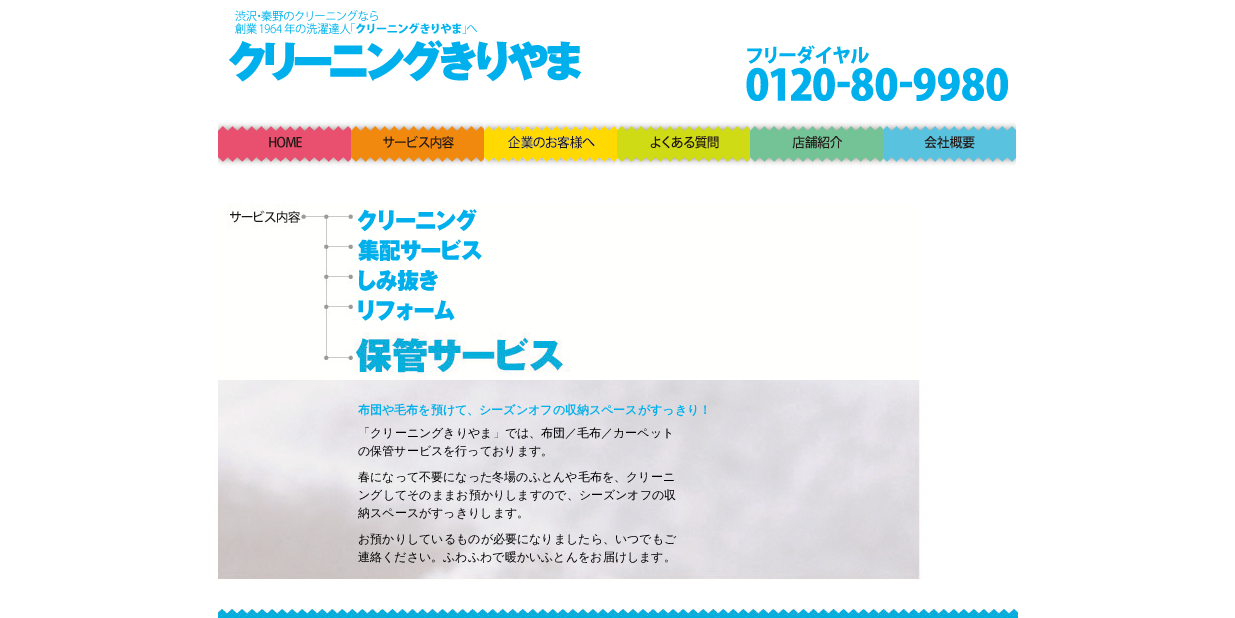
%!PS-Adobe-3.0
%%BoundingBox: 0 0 1235 618
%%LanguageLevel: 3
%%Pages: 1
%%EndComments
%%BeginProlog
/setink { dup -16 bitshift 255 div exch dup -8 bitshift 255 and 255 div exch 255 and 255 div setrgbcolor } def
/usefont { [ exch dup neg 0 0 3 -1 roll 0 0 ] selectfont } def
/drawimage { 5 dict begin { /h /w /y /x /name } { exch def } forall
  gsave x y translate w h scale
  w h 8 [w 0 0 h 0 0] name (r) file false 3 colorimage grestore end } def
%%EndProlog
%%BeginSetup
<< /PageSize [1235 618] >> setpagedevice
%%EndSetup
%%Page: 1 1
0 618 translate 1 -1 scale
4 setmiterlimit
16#FFFFFF setink
0 0 1235 618 rectfill
(img1.raw) 228 10 780 91 drawimage
(img2.raw) 218 122 133 44 drawimage
(img3.raw) 351 122 133 44 drawimage
(img4.raw) 484 122 133 44 drawimage
(img5.raw) 617 122 133 44 drawimage
(img6.raw) 750 122 133 44 drawimage
(img7.raw) 883 122 133 44 drawimage
(img8.raw) 218 204 704 376 drawimage
(img9.raw) 358 209 119 23 drawimage
(img10.raw) 358 239 124 22 drawimage
(img11.raw) 359 269 79 23 drawimage
(img12.raw) 358 300 97 21 drawimage
/WenQuanYiZenHei-Bold 12 usefont
16#00B0EC setink
358 414 moveto (布団や毛布を預けて、シーズンオフの収納スペースがすっきり！) show
/WenQuanYiZenHei-Medium 12 usefont
16#000000 setink
[
    [(「クリーニングきりやま」では、布団／毛布／カーペット) 358 437]
    [(の保管サービスを行っております。) 358 455]
    [(春になって不要になった冬場のふとんや毛布を、クリーニ) 358 481]
    [(ングしてそのままお預かりしますので、シーズンオフの収) 358 499]
    [(納スペースがすっきりします。) 358 517]
    [(お預かりしているものが必要になりましたら、いつでもご) 358 543]
    [(連絡ください。ふわふわで暖かいふとんをお届けします。) 358 561]
] { aload pop moveto show } forall
(img13.raw) 218 609 800 9 drawimage
showpage
%%EOF
